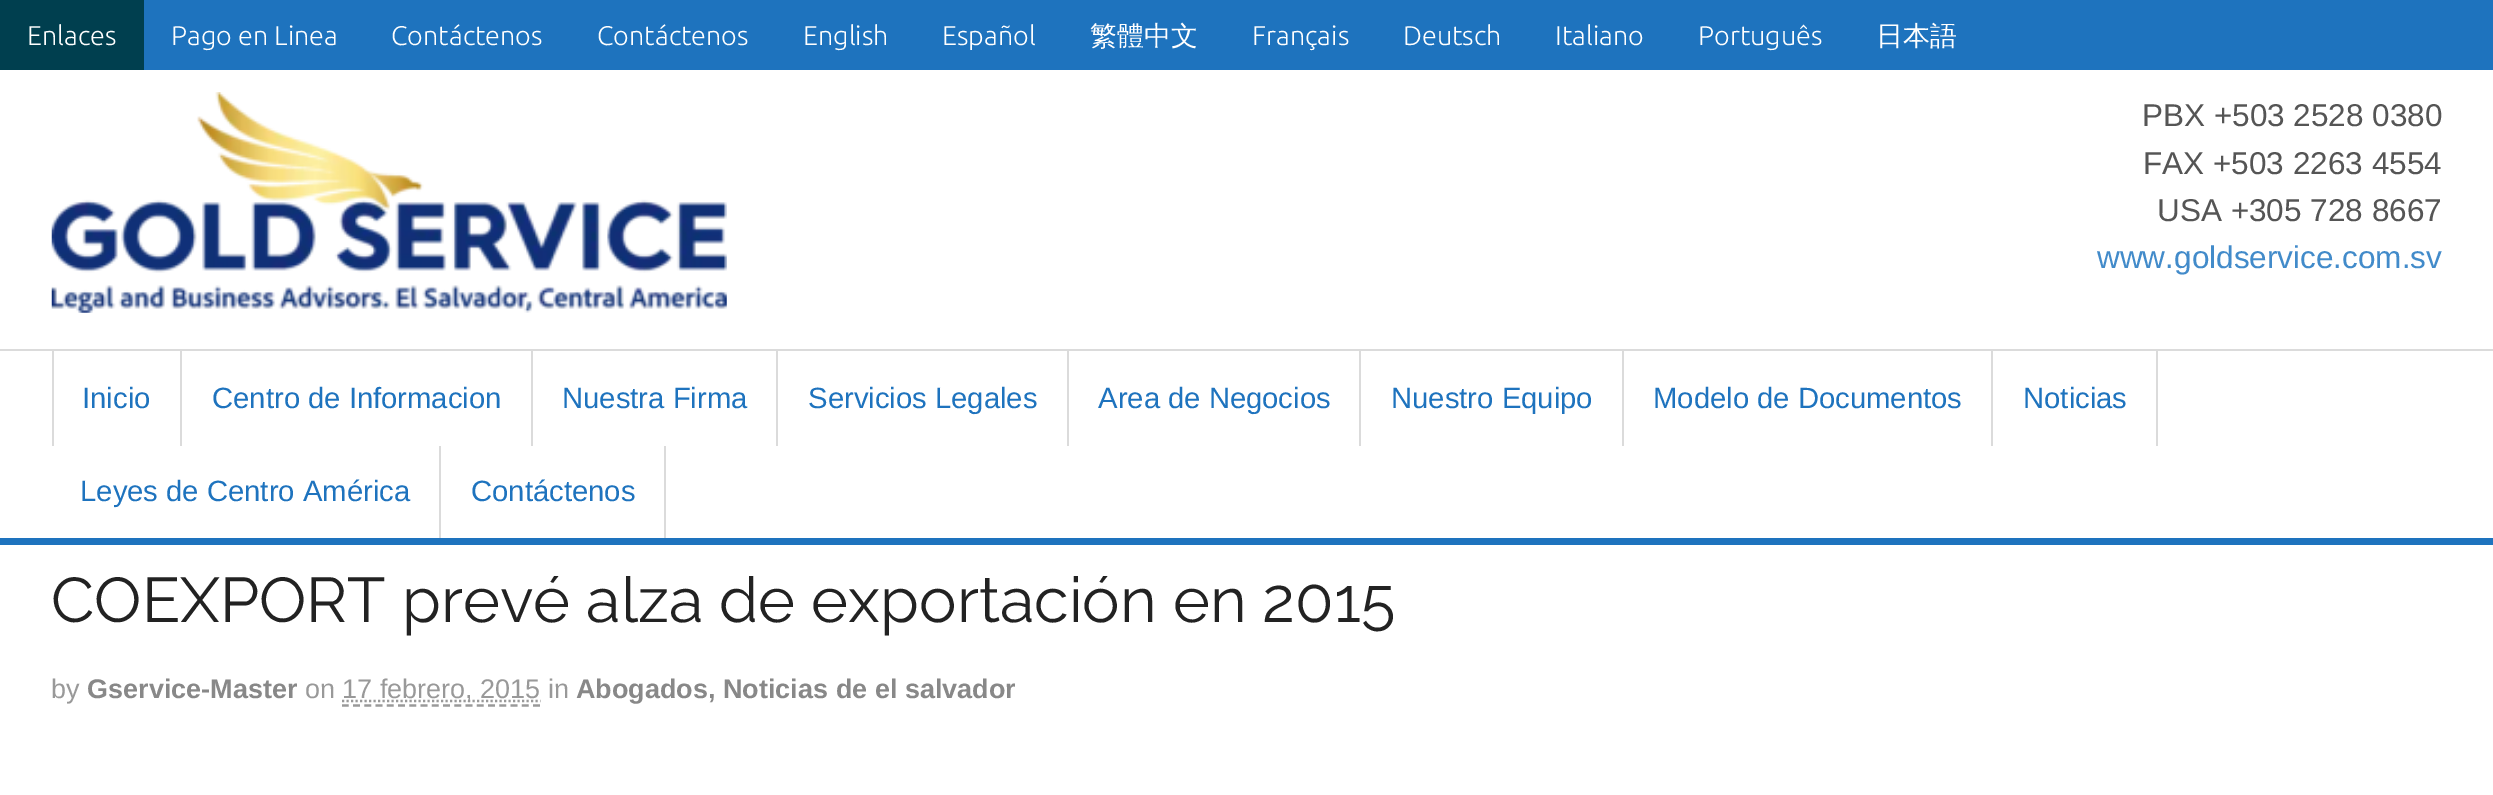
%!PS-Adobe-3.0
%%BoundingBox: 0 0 2493 795
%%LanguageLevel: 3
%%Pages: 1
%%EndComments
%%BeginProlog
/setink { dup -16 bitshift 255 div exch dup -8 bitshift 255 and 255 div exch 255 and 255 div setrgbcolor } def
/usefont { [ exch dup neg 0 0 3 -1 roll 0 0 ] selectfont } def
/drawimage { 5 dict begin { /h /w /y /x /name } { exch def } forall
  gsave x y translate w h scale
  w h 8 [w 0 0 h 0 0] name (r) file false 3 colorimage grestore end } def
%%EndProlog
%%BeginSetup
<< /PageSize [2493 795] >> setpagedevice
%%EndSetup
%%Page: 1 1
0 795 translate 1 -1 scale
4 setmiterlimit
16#FFFFFF setink
0 0 2493 795 rectfill
16#1E73BE setink
144 0 2349 70 rectfill
16#003F4F setink
0 0 144 70 rectfill
/Ubuntu-Light 27 usefont
16#FFFFFF setink
[
    [(Enlaces) 27 45]
    [(Pago en Linea) 171 45]
    [(Contáctenos) 391 45]
    [(Contáctenos) 597 45]
    [(English) 803 45]
    [(Español) 942 45]
] { aload pop moveto show } forall
/WenQuanYiZenHei-Medium 27 usefont
1090 45 moveto (繁體中文) show
/Ubuntu-Light 27 usefont
[
    [(Français) 1252 45]
    [(Deutsch) 1403 45]
    [(Italiano) 1555 45]
    [(Português) 1698 45]
] { aload pop moveto show } forall
/WenQuanYiZenHei-Medium 27 usefont
1876 45 moveto (日本語) show
(img1.raw) 51 92 676 221 drawimage
/LiberationSans-Regular 31.5 usefont
16#555555 setink
[
    [(PBX +503 2528 0380) 2142 126]
    [(FAX +503 2263 4554) 2143 174]
    [(USA +305 728 8667) 2157 221]
] { aload pop moveto show } forall
16#428BCA setink
2097 268 moveto (www.goldservice.com.sv) show
[
    [0 349 2493 2 16#DBDBDB]
    [0 538 2493 7 16#1E73BE]
    [180 351 2 95 16#DBDBDB]
    [52 351 2 95 16#DBDBDB]
] { aload pop setink rectfill } forall
/LiberationSans-Regular 29.25 usefont
16#1E73BE setink
82 408 moveto (Inicio) show
16#DBDBDB setink
531 351 2 95 rectfill
16#1E73BE setink
212 408 moveto (Centro de Informacion) show
16#DBDBDB setink
776 351 2 95 rectfill
16#1E73BE setink
562 408 moveto (Nuestra Firma) show
16#DBDBDB setink
1067 351 2 95 rectfill
16#1E73BE setink
808 408 moveto (Servicios Legales) show
16#DBDBDB setink
1359 351 2 95 rectfill
16#1E73BE setink
1098 408 moveto (Area de Negocios) show
16#DBDBDB setink
1622 351 2 95 rectfill
16#1E73BE setink
1391 408 moveto (Nuestro Equipo) show
16#DBDBDB setink
1991 351 2 95 rectfill
16#1E73BE setink
1653 408 moveto (Modelo de Documentos) show
16#DBDBDB setink
2156 351 2 95 rectfill
16#1E73BE setink
2023 408 moveto (Noticias) show
16#DBDBDB setink
439 446 2 92 rectfill
16#1E73BE setink
80 501 moveto (Leyes de Centro América) show
16#DBDBDB setink
664 446 2 92 rectfill
16#1E73BE setink
471 501 moveto (Contáctenos) show
/Raleway-Regular 63 usefont
16#222222 setink
51 622 moveto (COEXPORT prevé alza de exportación en 2015) show
/LiberationSans-Regular 27 usefont
16#999999 setink
51 698 moveto (by) show
/LiberationSans-Bold 27 usefont
16#888888 setink
87 698 moveto (Gservice-Master) show
/LiberationSans-Regular 27 usefont
16#999999 setink
305 698 moveto (on) show
2.2 setlinewidth
[2.25 2.25] 0 setdash
342 701 moveto 540.5 701 lineto stroke
342 698 moveto (17 febrero, 2015 in) show
[6.75 4.5] 0 setdash
342 705.5 moveto 540 705.5 lineto stroke
/LiberationSans-Bold 27 usefont
16#888888 setink
576 698 moveto (Abogados, Noticias de el salvador) show
showpage
%%EOF
